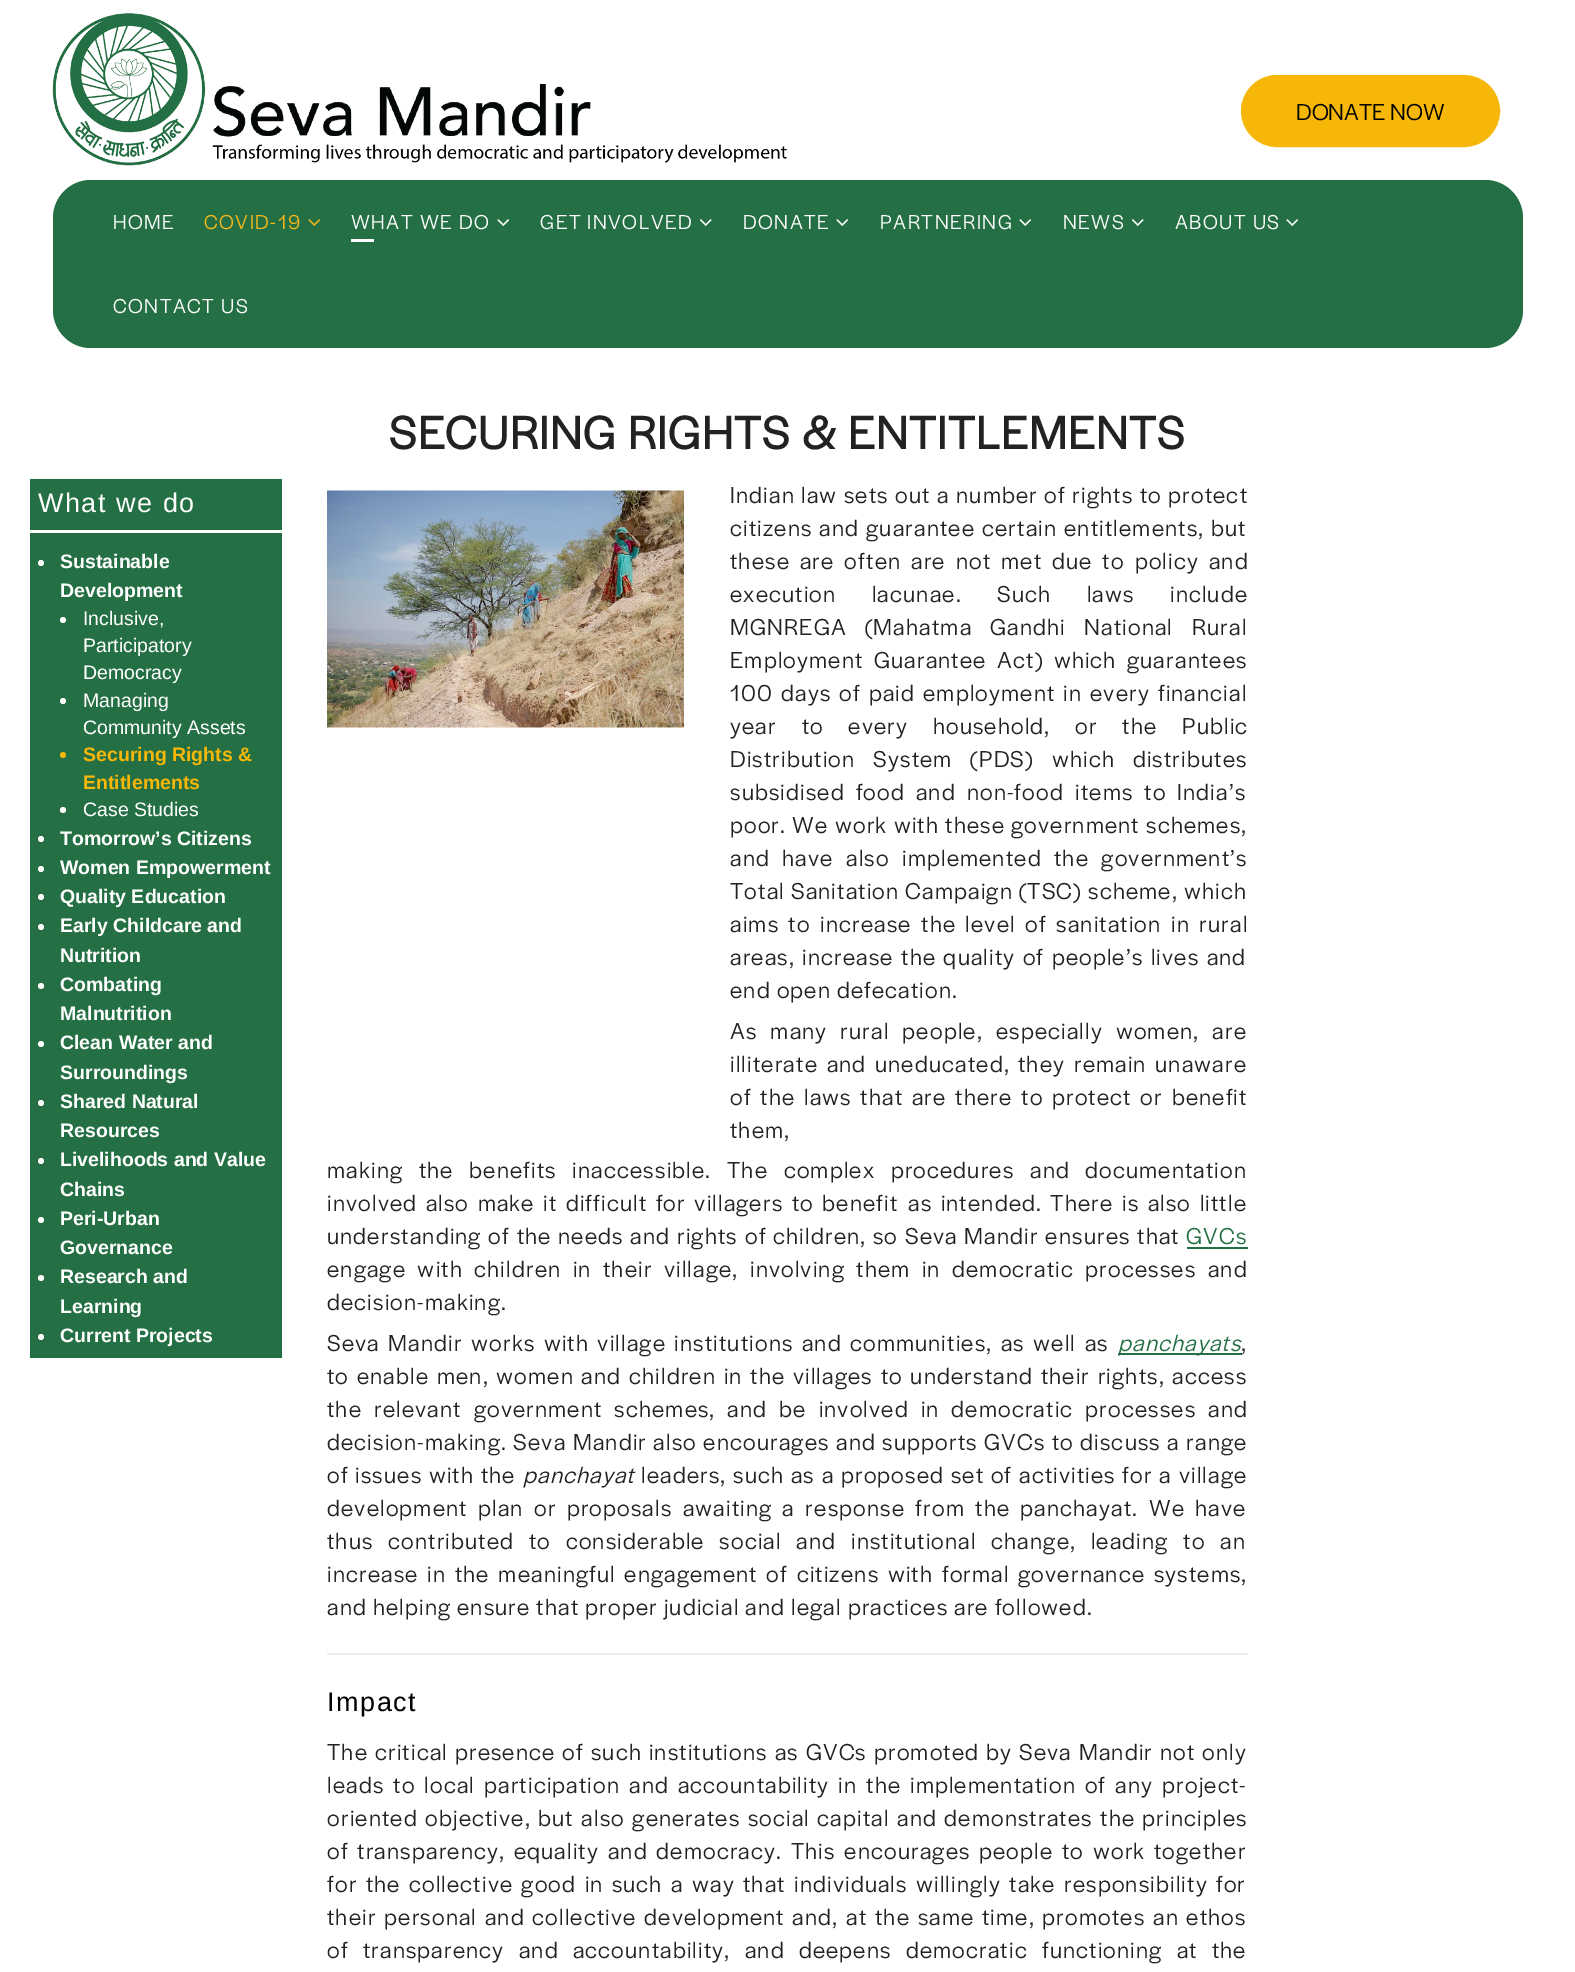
%!PS-Adobe-3.0
%%BoundingBox: 0 0 1575 1972
%%LanguageLevel: 3
%%Pages: 1
%%EndComments
%%BeginProlog
/setink { dup -16 bitshift 255 div exch dup -8 bitshift 255 and 255 div exch 255 and 255 div setrgbcolor } def
/usefont { [ exch dup neg 0 0 3 -1 roll 0 0 ] selectfont } def
/disc { newpath 0 360 arc closepath } def
/rrect { 5 dict begin { /r /h /w /y /x } { exch def } forall
  x r add y moveto x w add y 2 copy h add r arct x w add y h add x 1 index r arct
  x y h add x y r arct x y 2 copy exch w add exch r arct closepath end } def
/drawimage { 5 dict begin { /h /w /y /x /name } { exch def } forall
  gsave x y translate w h scale
  w h 8 [w 0 0 h 0 0] name (r) file false 3 colorimage grestore end } def
%%EndProlog
%%BeginSetup
<< /PageSize [1575 1972] >> setpagedevice
%%EndSetup
%%Page: 1 1
0 1972 translate 1 -1 scale
4 setmiterlimit
16#FFFFFF setink
0 0 1575 1972 rectfill
(img1.raw) 52 13 735 153 drawimage
16#F6B708 setink
1242 76 257 70 35 rrect gsave fill grestore
2 setlinewidth
stroke
/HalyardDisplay-Regular 24 usefont
16#000000 setink
1296 120 moveto (DONATE NOW) show
16#246F43 setink
53 180 1470 168 38 rrect fill
/HalyardDisplay-Regular 21 usefont
16#FFFFFF setink
113 229 moveto 1.5 0 (HOME) ashow
16#F5B71A setink
204 229 moveto 1.5 0 (COVID-19) ashow
(img2.raw) 308 219 12 7 drawimage
16#FFFFFF setink
351 229 moveto 1.5 0 (WHAT WE DO) ashow
(img3.raw) 497 219 12 7 drawimage
351 239 23 3 rectfill
540 229 moveto 1.5 0 (GET INVOLVED) ashow
(img4.raw) 700 219 12 7 drawimage
743 229 moveto 1.5 0 (DONATE) ashow
(img3.raw) 836 219 12 7 drawimage
880 229 moveto 1.5 0 (PARTNERING) ashow
(img3.raw) 1019 219 12 7 drawimage
1063 229 moveto 1.5 0 (NEWS) ashow
(img4.raw) 1132 219 12 7 drawimage
1175 229 moveto 1.5 0 (ABOUT US) ashow
(img3.raw) 1286 219 12 7 drawimage
113 313 moveto 1.5 0 (CONTACT US) ashow
/HalyardDisplay-Bold 48 usefont
16#222222 setink
389 449 moveto 1.5 0 (SECURING RIGHTS & ENTITLEMENTS) ashow
16#246F43 setink
30 479 252 879 rectfill
16#FFFFFF setink
30 530 252 3 rectfill
/LiberationSans-Regular 27 usefont
38 512 moveto 1.5 0 (What we do) ashow
41 563 3 disc fill
/LiberationSans-Bold 19.5 usefont
60 568 moveto (Sustainable) show
60 597 moveto (Development) show
63 620 3 disc fill
/LiberationSans-Regular 19.5 usefont
[
    [(Inclusive,) 83 625]
    [(Participatory) 83 652]
    [(Democracy) 83 679]
] { aload pop moveto show } forall
63 701 3 disc fill
83 707 moveto (Managing) show
83 734 moveto (Community Assets) show
16#F6B708 setink
63 755 3 disc fill
/LiberationSans-Bold 19.5 usefont
83 761 moveto (Securing Rights &) show
83 789 moveto (Entitlements) show
16#FFFFFF setink
63 810 3 disc fill
/LiberationSans-Regular 19.5 usefont
83 816 moveto (Case Studies) show
41 839 3 disc fill
/LiberationSans-Bold 19.5 usefont
60 845 moveto (Tomorrow’s Citizens) show
41 869 3 disc fill
60 874 moveto (Women Empowerment) show
41 897 3 disc fill
60 903 moveto (Quality Education) show
41 927 3 disc fill
60 932 moveto (Early Childcare and) show
60 962 moveto (Nutrition) show
41 986 3 disc fill
60 991 moveto (Combating) show
60 1020 moveto (Malnutrition) show
41 1044 3 disc fill
60 1049 moveto (Clean Water and) show
60 1079 moveto (Surroundings) show
41 1103 3 disc fill
60 1108 moveto (Shared Natural) show
60 1137 moveto (Resources) show
41 1161 3 disc fill
60 1166 moveto (Livelihoods and Value) show
60 1196 moveto (Chains) show
41 1220 3 disc fill
60 1225 moveto (Peri-Urban) show
60 1254 moveto (Governance) show
41 1278 3 disc fill
60 1283 moveto (Research and) show
60 1313 moveto (Learning) show
41 1337 3 disc fill
60 1342 moveto (Current Projects) show
(img5.raw) 327 490 357 238 drawimage
/HalyardDisplay-Regular 24 usefont
16#222222 setink
730 503 moveto 0.5 0 32 1.2 0 (Indian law sets out a number of rights to protect) awidthshow
730 536 moveto 1 0 32 1.2 0 (citizens and guarantee) awidthshow
982 536 moveto 1 0 32 1.2 0 (certain entitlements, but) awidthshow
730 569 moveto 4 0 32 1.2 0 (these are often are not met due to policy and) awidthshow
730 602 moveto 29.5 0 32 1.2 0 (execution lacunae. Such laws include) awidthshow
730 635 moveto 12 0 32 1.2 0 (MGNREGA \(Mahatma Gandhi National) awidthshow
1192 635 moveto 1.2 0 (Rural) ashow
730 668 moveto 4.5 0 32 1.2 0 (Employment Guarantee Act\) which guarantees) awidthshow
730 701 moveto 2 0 32 1.2 0 (100 days of paid) awidthshow
923 701 moveto 2 0 32 1.2 0 (employment in every financial) awidthshow
730 734 moveto 18.75 0 32 1.2 0 (year to every household, or the Public) awidthshow
730 767 moveto 12 0 32 1.2 0 (Distribution System \(PDS\) which distributes) awidthshow
730 800 moveto 5 0 32 1.2 0 (subsidised food and non-food) awidthshow
1075 800 moveto 5 0 32 1.2 0 (items to India’s) awidthshow
730 833 moveto 0.25 0 32 1.2 0 (poor. We work with these government schemes,) awidthshow
730 866 moveto 6.5 0 32 1.2 0 (and have) awidthshow
846 866 moveto 6.5 0 32 1.2 0 (also implemented the government’s) awidthshow
730 899 moveto 1.2 0 (Total Sanitation Campaign \(TSC\)) ashow
1088 899 moveto 1.2 0 (scheme, which) ashow
730 932 moveto 3.5 0 32 1.2 0 (aims to increase the level of sanitation in rural) awidthshow
730 965 moveto 1.2 0 (areas,) ashow
802 965 moveto 1.5 0 32 1.2 0 (increase the quality of people’s lives and) awidthshow
730 998 moveto 1.2 0 (end open defecation.) ashow
730 1039 moveto 7 0 32 1.2 0 (As many rural people, especially women, are) awidthshow
730 1072 moveto 2.75 0 32 1.2 0 (illiterate and uneducated,) awidthshow
1018 1072 moveto 2.75 0 32 1.2 0 (they remain unaware) awidthshow
730 1105 moveto 2.75 0 32 1.2 0 (of the laws that are there to protect or benefit) awidthshow
730 1138 moveto 1.2 0 (them,) ashow
327 1178 moveto 9.75 0 32 1.2 0 (making the benefits inaccessible. The complex procedures and) awidthshow
1085 1178 moveto 1.2 0 (documentation) ashow
327 1211 moveto 2.5 0 32 1.2 0 (involved also make it difficult for villagers to benefit) awidthshow
908 1211 moveto 2.5 0 32 1.2 0 (as intended. There is also little) awidthshow
327 1244 moveto 0.75 0 32 1.2 0 (understanding of the needs and rights) awidthshow
745 1244 moveto 0.75 0 32 1.2 0 (of children, so Seva Mandir ensures that) awidthshow
16#246F43 setink
1186 1244 moveto 1.2 0 (GVCs) ashow
1187 1247 61 2 rectfill
16#222222 setink
327 1277 moveto 5.5 0 32 1.2 0 (engage with children in) awidthshow
603 1277 moveto 5.5 0 32 1.2 0 (their village, involving them in democratic processes and) awidthshow
327 1310 moveto 1.2 0 (decision-making.) ashow
327 1351 moveto 2.5 0 32 1.2 0 (Seva Mandir works with village institutions and communities, as well as) awidthshow
16#246F43 setink
1118 1353 124 2 rectfill
/HalyardDisplay-Italic 24 usefont
1118 1351 moveto 1.2 0 (panchayats) ashow
/HalyardDisplay-Regular 24 usefont
16#222222 setink
1241 1351 moveto 1.2 0 (,) ashow
327 1384 moveto 1.75 0 32 1.2 0 (to enable men, women and children in the villages to understand their rights, access) awidthshow
327 1417 moveto 6 0 32 1.2 0 (the relevant government schemes, and be involved in democratic processes and) awidthshow
327 1450 moveto 0.5 0 32 1.2 0 (decision-making. Seva Mandir also encourages and supports GVCs to discuss a range) awidthshow
327 1483 moveto 0.75 0 32 1.2 0 (of issues with the) awidthshow
/HalyardDisplay-Italic 24 usefont
523 1483 moveto 1.2 0 (panchayat) ashow
/HalyardDisplay-Regular 24 usefont
641 1483 moveto 0.75 0 32 1.2 0 (leaders, such as a proposed set of activities for a village) awidthshow
327 1516 moveto 4.4 0 32 1.2 0 (development plan or proposals awaiting a response from the panchayat. We have) awidthshow
327 1549 moveto 8.75 0 32 1.2 0 (thus contributed to considerable social and institutional change, leading to an) awidthshow
327 1582 moveto 2.75 0 32 1.2 0 (increase in the meaningful engagement of citizens with formal governance systems,) awidthshow
327 1615 moveto 1.2 0 (and helping ensure that proper judicial and legal practices are followed.) ashow
16#EEEEEE setink
327 1653 921 2 rectfill
/LiberationSans-Regular 27 usefont
16#000000 setink
327 1711 moveto 1.5 0 (Impact) ashow
/HalyardDisplay-Regular 24 usefont
16#222222 setink
327 1760 moveto 1 0 32 1.2 0 (The critical presence of such institutions as GVCs promoted by Seva Mandir not only) awidthshow
327 1793 moveto 3 0 32 1.2 0 (leads to local participation and accountability in the implementation of any project-) awidthshow
327 1826 moveto 1.5 0 32 1.2 0 (oriented objective, but also generates social capital and demonstrates the principles) awidthshow
327 1859 moveto 2.75 0 32 1.2 0 (of transparency, equality and democracy. This encourages people to work together) awidthshow
327 1892 moveto 2.4 0 32 1.2 0 (for the collective good in such a way that individuals willingly take responsibility for) awidthshow
327 1925 moveto 1.75 0 32 1.2 0 (their personal and collective development and, at the same time, promotes an ethos) awidthshow
327 1958 moveto 8.25 0 32 1.2 0 (of transparency and accountability, and deepens democratic functioning at the) awidthshow
showpage
%%EOF
